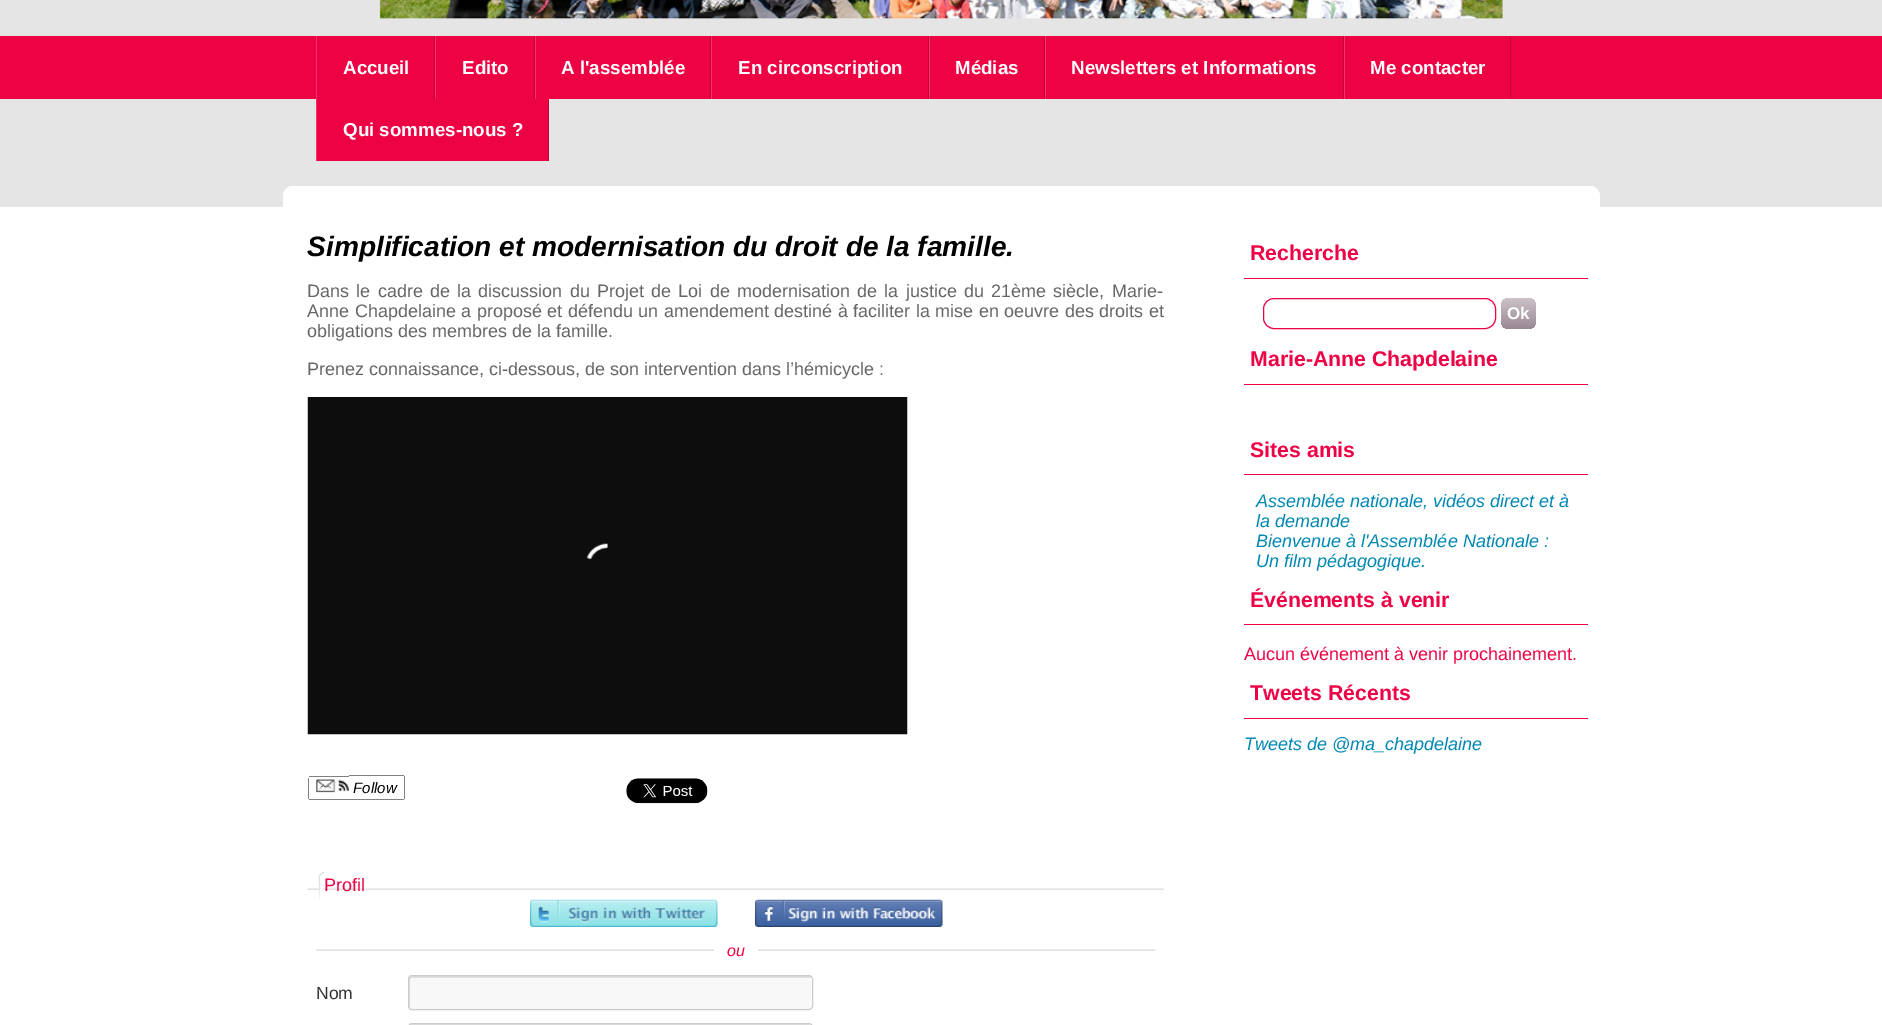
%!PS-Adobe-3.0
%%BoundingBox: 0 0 1882 1025
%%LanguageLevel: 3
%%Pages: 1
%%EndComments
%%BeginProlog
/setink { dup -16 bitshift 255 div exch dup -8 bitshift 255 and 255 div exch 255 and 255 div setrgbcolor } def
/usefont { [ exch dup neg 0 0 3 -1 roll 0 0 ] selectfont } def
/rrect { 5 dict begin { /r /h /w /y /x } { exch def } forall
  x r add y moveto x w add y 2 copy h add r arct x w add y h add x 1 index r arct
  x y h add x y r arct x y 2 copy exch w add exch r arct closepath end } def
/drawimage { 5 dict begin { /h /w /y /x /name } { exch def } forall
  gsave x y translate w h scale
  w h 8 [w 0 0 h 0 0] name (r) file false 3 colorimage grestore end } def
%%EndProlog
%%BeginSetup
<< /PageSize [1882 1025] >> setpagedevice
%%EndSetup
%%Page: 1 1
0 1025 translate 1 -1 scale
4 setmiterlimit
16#FFFFFF setink
0 0 1882 1025 rectfill
16#E6E5E5 setink
0 0 1882 207 rectfill
(img1.raw) 379 0 1124 19 drawimage
[
    [0 36 1882 63 16#ED0244]
    [434 36 1 63 16#BC0439]
    [316 36 1 125 16#FF2D69]
] { aload pop setink rectfill } forall
/LiberationSans-Bold 18.75 usefont
16#FFFFFF setink
343 74 moveto (Accueil) show
16#BC0439 setink
534 36 1 63 rectfill
16#FF2D69 setink
435 36 1 63 rectfill
16#FFFFFF setink
462 74 moveto (Edito) show
16#BC0439 setink
710 36 1 63 rectfill
16#FF2D69 setink
535 36 1 63 rectfill
16#FFFFFF setink
561 74 moveto (A l'assemblée) show
16#BC0439 setink
928 36 1 63 rectfill
16#FF2D69 setink
711 36 1 63 rectfill
16#FFFFFF setink
738 74 moveto (En circonscription) show
16#BC0439 setink
1044 36 1 63 rectfill
16#FF2D69 setink
929 36 1 63 rectfill
16#FFFFFF setink
955 74 moveto (Médias) show
16#BC0439 setink
1343 36 1 63 rectfill
16#FF2D69 setink
1045 36 1 63 rectfill
16#FFFFFF setink
1071 74 moveto (Newsletters et Informations) show
16#BC0439 setink
1510 36 1 63 rectfill
16#FF2D69 setink
1344 36 1 63 rectfill
16#FFFFFF setink
1370 74 moveto (Me contacter) show
16#ED0244 setink
317 99 231 62 rectfill
16#BC0439 setink
548 99 1 62 rectfill
16#FFFFFF setink
343 136 moveto (Qui sommes-nous ?) show
283 186 1317 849 10 rrect fill
293 186 moveto 1189 186 lineto 1189 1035 lineto 293 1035 lineto 287.5 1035 283 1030.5 283 1025 curveto 283 196 lineto 283 190.5 287.5 186 293 186 curveto closepath fill
/LiberationSans-BoldItalic 28.1 usefont
16#000000 setink
307 256 moveto (Simplification et modernisation du droit de la famille.) show
/LiberationSans-Regular 18 usefont
16#666666 setink
307 297 moveto 2.25 0 32 (Dans le cadre de la discussion du Projet de Loi de modernisation de la justice du 21ème siècle, Marie-) widthshow
307 317 moveto 0.5 0 32 (Anne Chapdelaine a proposé et défendu un amendement destiné à faciliter la mise en oeuvre des droits et) widthshow
307 337 moveto (obligations des membres de la famille.) show
307 375 moveto (Prenez connaissance, ci-dessous, de son intervention dans l’hémicycle :) show
(img2.raw) 307 397 601 338 drawimage
(img3.raw) 316 779 33 14 drawimage
/LiberationSans-Italic 15 usefont
16#000000 setink
353 793 moveto (Follow) show
[
    [309 776 40 1 16#808080]
    [309 799 95 1 16#808080]
    [308 778 1 21 16#808080]
    [349 775 55 1 16#808080]
    [404 776 1 23 16#808080]
] { aload pop setink rectfill } forall
(img4.raw) 626 778 82 26 drawimage
(img5.raw) 307 872 857 28 drawimage
/LiberationSans-Regular 18 usefont
16#EE0245 setink
324 891 moveto (Profil) show
(img6.raw) 530 899 188 28 drawimage
(img7.raw) 755 899 188 28 drawimage
(img8.raw) 316 949 839 2 drawimage
16#FFFFFF setink
714 949 44 2 rectfill
/LiberationSans-Italic 16 usefont
16#EE0245 setink
727 956 moveto (ou) show
/LiberationSans-Regular 17.5 usefont
16#333333 setink
316 999 moveto (Nom) show
16#F8F8F8 setink
409 976 402 33 2.5 rrect fill
16#DFDFDF setink
412 978 moveto 811 978 lineto 810 976 lineto 808 976 lineto 412 976 lineto 410 977 lineto 409 978 lineto 409 1007 lineto 410 1009 lineto 410 985 lineto 410 984 409 978 412 978 curveto closepath fill
16#CCCCCC setink
408.5 975.5 404 34 3.5 rrect stroke
16#F8F8F8 setink
409 1024 402 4 2.5 rrect fill
16#DFDFDF setink
412 1025 moveto 811 1025 lineto 808 1024 lineto 411 1024 lineto 408 1025 409 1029 409 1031 curveto 409 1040 lineto 409 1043 408 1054 410 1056 curveto 410 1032 lineto 410 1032 409 1025 412 1025 curveto closepath fill
16#CCCCCC setink
408.5 1023.5 404 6 3.5 rrect stroke
16#EE0245 setink
1244 278 344 1 rectfill
/LiberationSans-Bold 21.25 usefont
1250 260 moveto (Recherche) show
1263.5 298.5 232 30 10.5 rrect stroke
gsave 1501 298 35 31 8 rrect clip newpath
<< /ShadingType 2 /ColorSpace /DeviceRGB /Coords [1501 298 1501 329] /Extend [true true] /Function << /FunctionType 2 /Domain [0 1] /C0 [0.804 0.761 0.792] /C1 [0.6 0.533 0.573] /N 1 >> >> shfill grestore
/LiberationSans-Bold 17 usefont
16#FFFFFF setink
1507 319 moveto (Ok) show
16#EE0245 setink
1244 384 344 1 rectfill
/LiberationSans-Bold 21.25 usefont
1250 366 moveto (Marie-Anne Chapdelaine) show
1244 474 344 1 rectfill
1250 457 moveto (Sites amis) show
/LiberationSans-Italic 18 usefont
16#0088B2 setink
[
    [(Assemblée nationale, vidéos direct et à) 1256 507]
    [(la demande) 1256 527]
    [(Bienvenue à l'Assemblée Nationale :) 1256 547]
    [(Un film pédagogique.) 1256 567]
] { aload pop moveto show } forall
16#EE0245 setink
1244 624 344 1 rectfill
/LiberationSans-Bold 21.25 usefont
1250 607 moveto (Événements à venir) show
/LiberationSans-Regular 18 usefont
1244 660 moveto (Aucun événement à venir prochainement.) show
1244 718 344 1 rectfill
/LiberationSans-Bold 21.25 usefont
1250 700 moveto (Tweets Récents) show
/LiberationSans-Italic 18 usefont
16#0088B2 setink
1244 750 moveto (Tweets de @ma_chapdelaine) show
showpage
%%EOF
